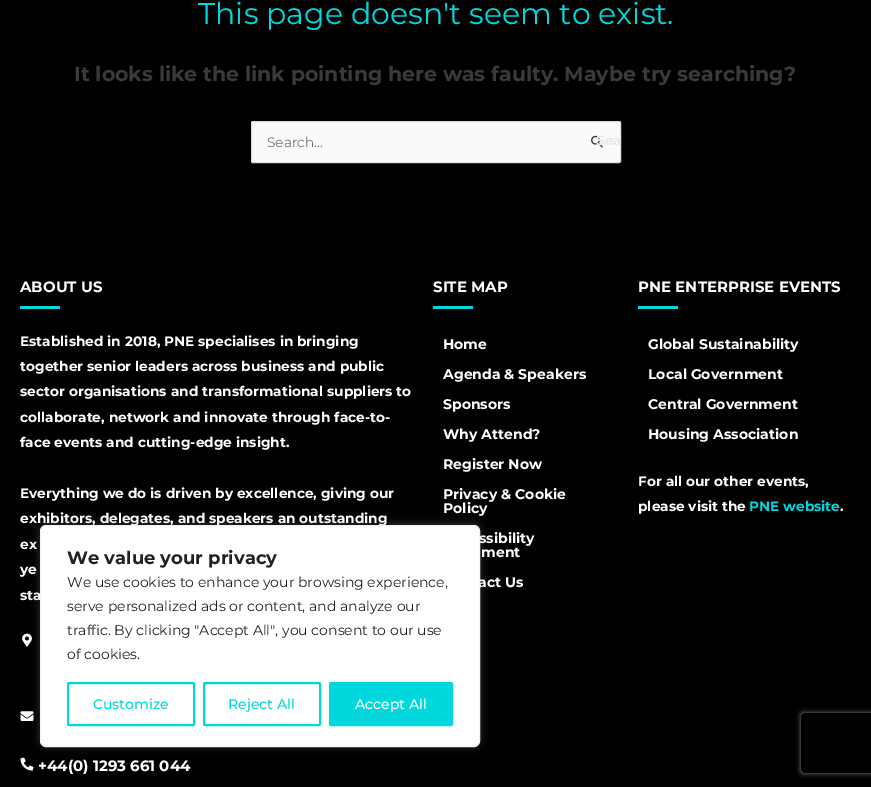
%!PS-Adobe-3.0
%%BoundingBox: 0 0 871 787
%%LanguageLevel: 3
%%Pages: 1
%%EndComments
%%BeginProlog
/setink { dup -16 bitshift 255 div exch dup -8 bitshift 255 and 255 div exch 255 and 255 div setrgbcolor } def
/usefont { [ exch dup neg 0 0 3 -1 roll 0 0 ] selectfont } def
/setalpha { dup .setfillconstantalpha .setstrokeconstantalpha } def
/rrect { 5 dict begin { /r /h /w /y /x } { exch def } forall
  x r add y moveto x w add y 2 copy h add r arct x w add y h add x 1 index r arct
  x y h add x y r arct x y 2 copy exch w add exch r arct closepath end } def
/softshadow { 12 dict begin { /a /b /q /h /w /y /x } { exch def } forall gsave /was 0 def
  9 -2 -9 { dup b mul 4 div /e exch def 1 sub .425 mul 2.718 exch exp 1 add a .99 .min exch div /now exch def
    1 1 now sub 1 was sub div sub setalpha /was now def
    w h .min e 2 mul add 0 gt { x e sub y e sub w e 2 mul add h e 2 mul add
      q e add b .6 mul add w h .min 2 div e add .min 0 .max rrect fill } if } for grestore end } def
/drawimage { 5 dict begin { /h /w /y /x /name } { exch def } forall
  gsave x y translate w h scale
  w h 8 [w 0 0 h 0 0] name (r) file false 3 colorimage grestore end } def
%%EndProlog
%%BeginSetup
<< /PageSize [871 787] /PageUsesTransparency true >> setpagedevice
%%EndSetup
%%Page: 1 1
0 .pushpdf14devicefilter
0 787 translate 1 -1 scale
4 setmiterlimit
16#000000 setink
0 0 871 787 rectfill
/Montserrat-Regular 30 usefont
16#01D8DD setink
198 24 moveto (This page doesn't seem to exist.) show
/Montserrat-Bold 20.5 usefont
16#3A3A3A setink
74 81 moveto (It looks like the link pointing here was faulty. Maybe try searching?) show
16#FAFAFA setink
251.5 121.5 369 41 1.5 rrect gsave fill grestore
16#DDDDDD setink
stroke
(img1.raw) 591 135 12 13 drawimage
/Montserrat-Regular 13.7 usefont
16#757575 setink
267 147 moveto (Search...) show
/Montserrat-Bold 13.7 usefont
16#E8E8E8 setink
596 145 moveto (Sea) show
/Montserrat-Bold 15 usefont
16#FFFFFF setink
20 292 moveto (ABOUT US) show
16#01D8DD setink
20 306 40 3 rectfill
/Montserrat-Bold 13.7 usefont
16#FFFFFF setink
[
    [(Established in 2018, PNE specialises in bringing) 20 346]
    [(together senior leaders across business and public) 20 371]
    [(sector organisations and transformational suppliers to) 20 396]
    [(collaborate, network and innovate through face-to-) 20 422]
    [(face events and cutting-edge insight.) 20 447]
    [(Everything we do is driven by excellence, giving our) 20 498]
    [(exhibitors, delegates, and speakers an outstanding) 20 523]
    [(ex) 20 549]
    [(ye) 20 574]
    [(sta) 20 600]
] { aload pop moveto show } forall
(img2.raw) 22 633 10 14 drawimage
(img3.raw) 20 711 14 10 drawimage
(img4.raw) 20 757 14 14 drawimage
/Montserrat-Bold 15 usefont
38 771 moveto (+44\(0\) 1293 661 044) show
433 292 moveto (SITE MAP) show
16#01D8DD setink
433 306 40 3 rectfill
/Montserrat-Bold 14 usefont
16#FFFFFF setink
[
    [(Home) 443 349]
    [(Agenda & Speakers) 443 379]
    [(Sponsors) 443 409]
    [(Why Attend?) 443 439]
    [(Register Now) 443 469]
    [(Privacy & Cookie) 443 499]
    [(Policy) 443 513]
    [(ssibility) 479 543]
    [(ment) 481 557]
    [(act Us) 478 587]
] { aload pop moveto show } forall
/Montserrat-Bold 15 usefont
638 292 moveto (PNE ENTERPRISE EVENTS) show
16#01D8DD setink
638 306 40 3 rectfill
/Montserrat-Bold 14 usefont
16#FFFFFF setink
[
    [(Global Sustainability) 648 349]
    [(Local Government) 648 379]
    [(Central Government) 648 409]
    [(Housing Association) 648 439]
] { aload pop moveto show } forall
/Montserrat-Bold 13.7 usefont
638 486 moveto (For all our other events,) show
638 511 moveto (please visit the) show
16#01D8DD setink
749 511 moveto (PNE website) show
16#FFFFFF setink
840 511 moveto (.) show
16#ACABAB setink
40 524 440 222 6 5 0.3 softshadow
16#FFFFFF setink
40.5 525.5 439 221 5.5 rrect gsave fill grestore
16#F4F4F4 setink
stroke
/Montserrat-Bold 18 usefont
16#212121 setink
67 564 moveto (We value your privacy) show
/Montserrat-Regular 14 usefont
[
    [(We use cookies to enhance your browsing experience,) 67 587]
    [(serve personalized ads or content, and analyze our) 67 611]
    [(traffic. By clicking "Accept All", you consent to our use) 67 635]
    [(of cookies.) 67 659]
] { aload pop moveto show } forall
16#01D8DD setink
2 setlinewidth
68 683 126 42 1 rrect stroke
/Montserrat-Medium 14 usefont
93 709 moveto (Customize) show
204 683 116 42 1 rrect stroke
228 709 moveto (Reject All) show
330 683 122 42 1 rrect gsave fill grestore
stroke
16#FFFFFF setink
355 709 moveto (Accept All) show
gsave
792 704 moveto 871 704 lineto 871 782 lineto 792 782 lineto closepath 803 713 moveto 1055 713 lineto 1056 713 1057 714 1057 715 curveto 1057 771 lineto 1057 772 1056 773 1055 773 curveto 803 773 lineto 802 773 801 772 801 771 curveto 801 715 lineto 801 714 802 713 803 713 curveto closepath eoclip newpath
16#808080 setink
801 713 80 60 2 2.5 1 softshadow
grestore
.poppdf14devicefilter showpage
%%EOF
